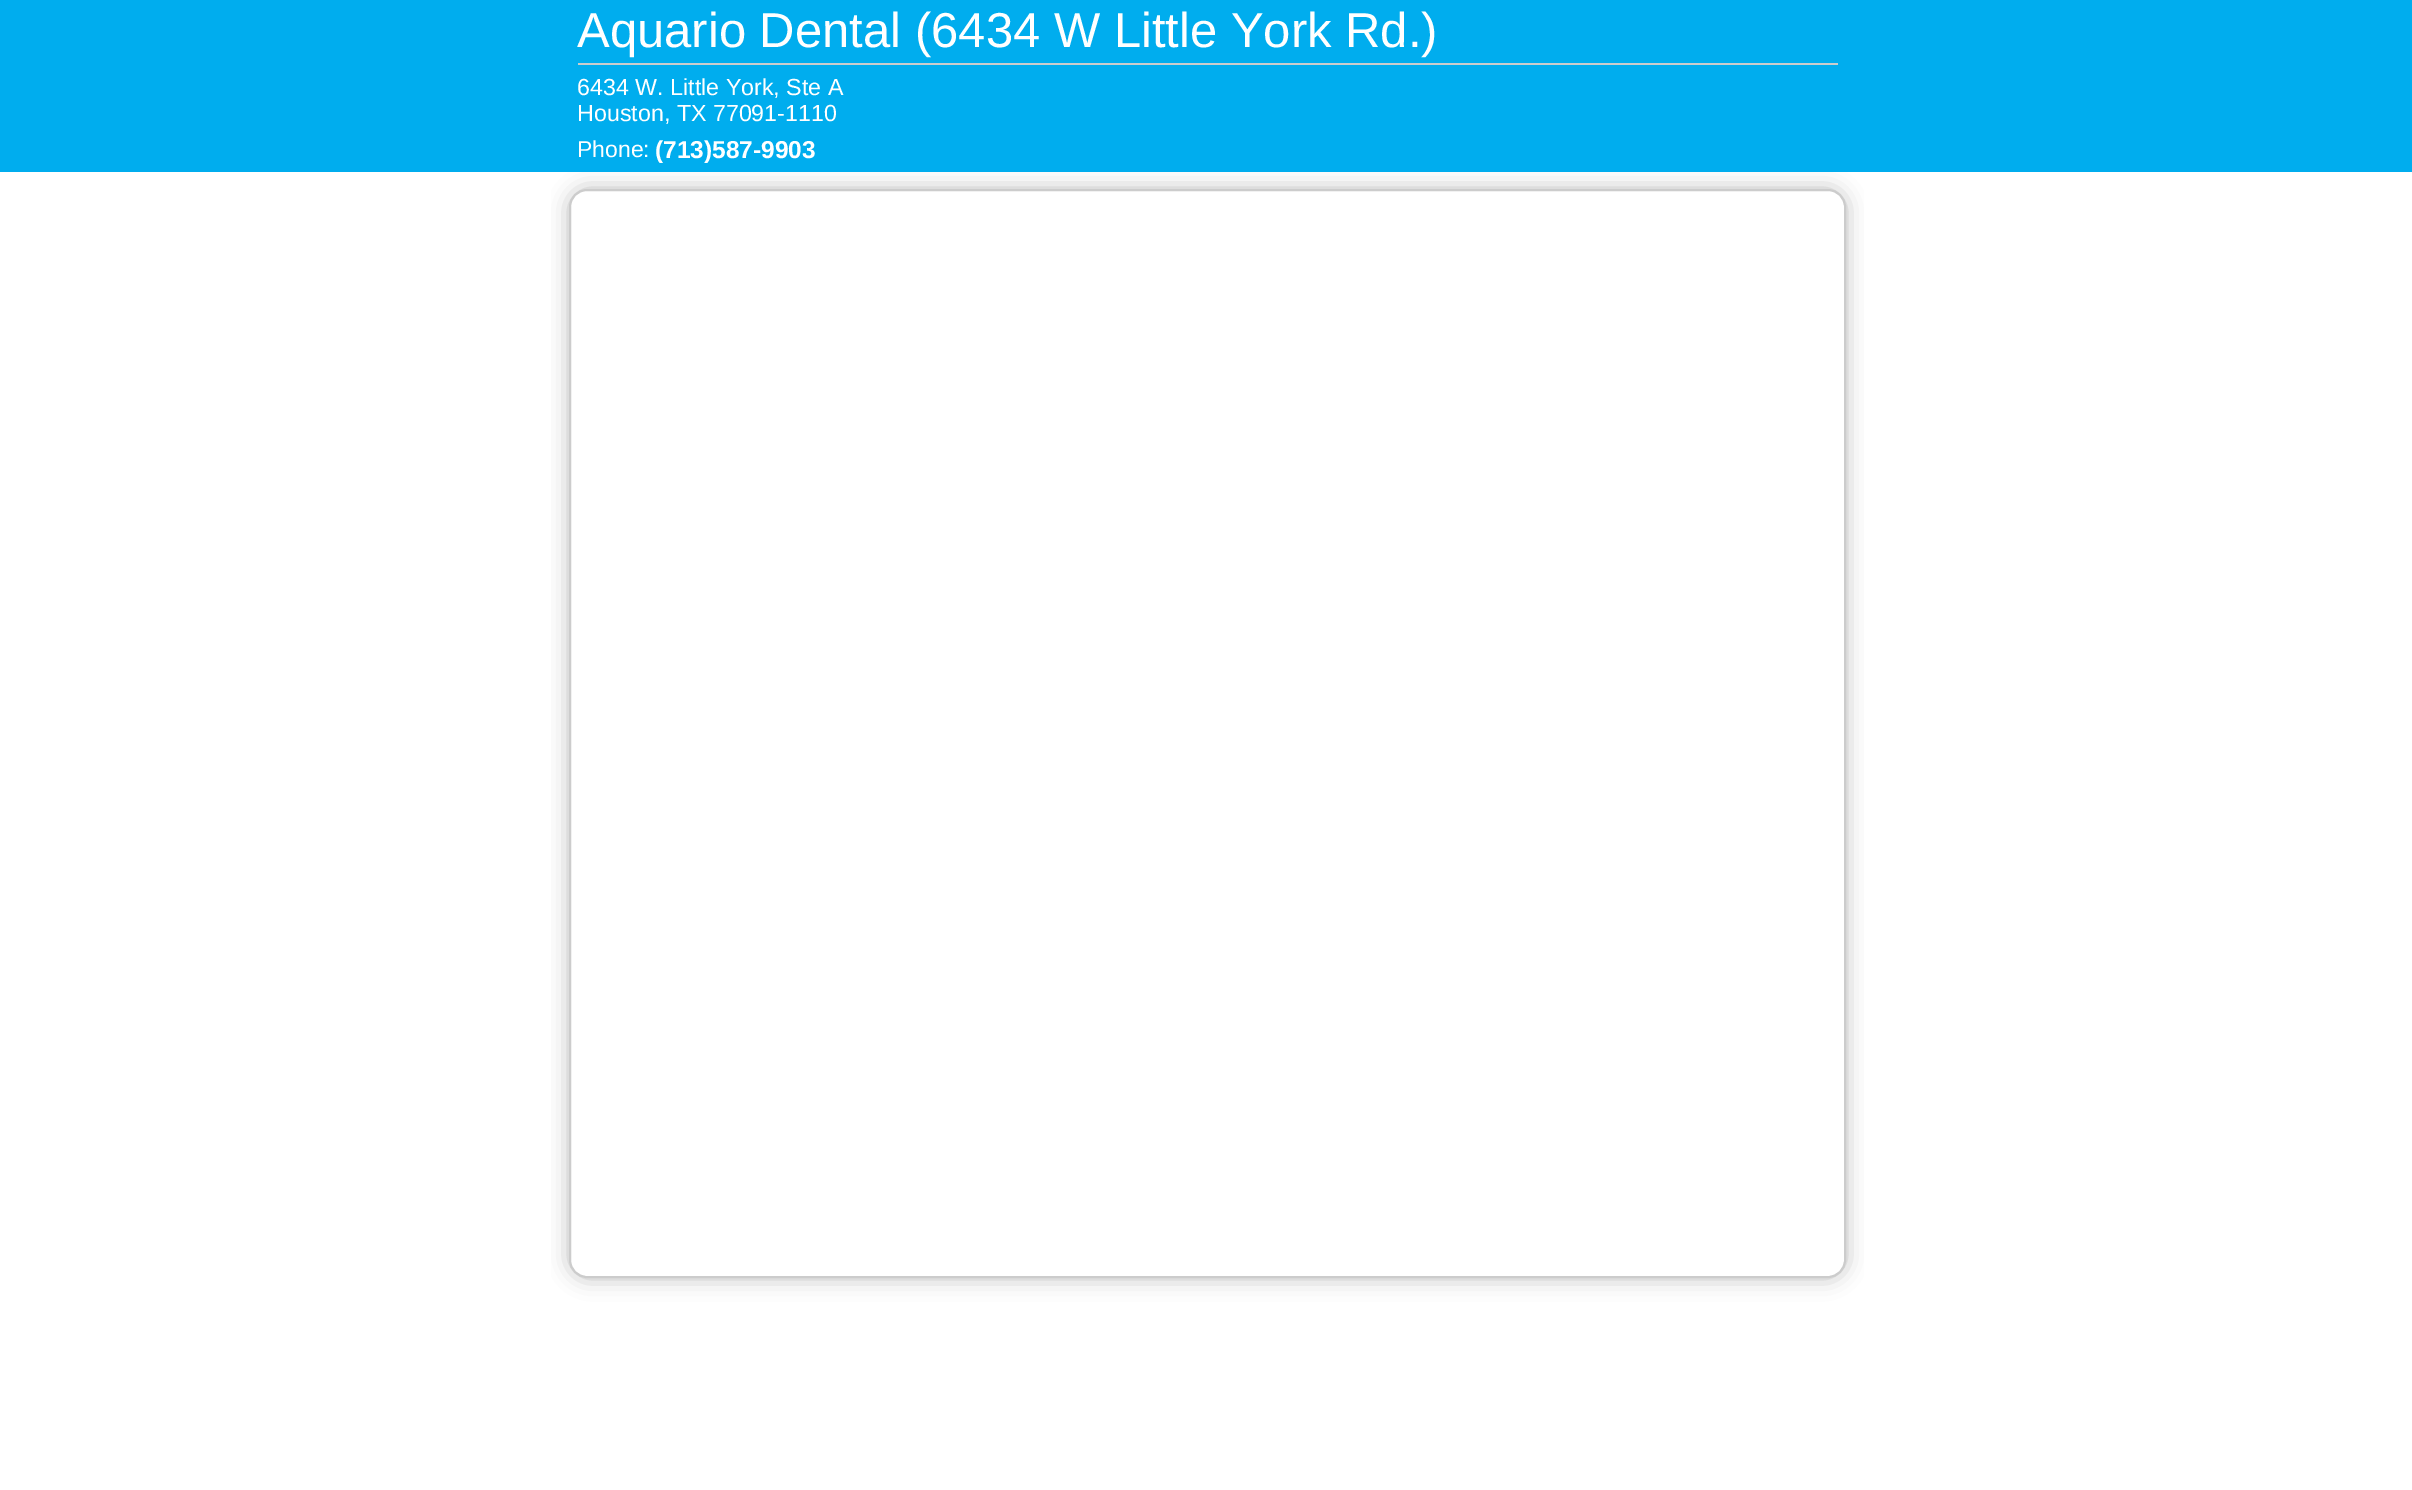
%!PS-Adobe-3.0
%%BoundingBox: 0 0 2412 1490
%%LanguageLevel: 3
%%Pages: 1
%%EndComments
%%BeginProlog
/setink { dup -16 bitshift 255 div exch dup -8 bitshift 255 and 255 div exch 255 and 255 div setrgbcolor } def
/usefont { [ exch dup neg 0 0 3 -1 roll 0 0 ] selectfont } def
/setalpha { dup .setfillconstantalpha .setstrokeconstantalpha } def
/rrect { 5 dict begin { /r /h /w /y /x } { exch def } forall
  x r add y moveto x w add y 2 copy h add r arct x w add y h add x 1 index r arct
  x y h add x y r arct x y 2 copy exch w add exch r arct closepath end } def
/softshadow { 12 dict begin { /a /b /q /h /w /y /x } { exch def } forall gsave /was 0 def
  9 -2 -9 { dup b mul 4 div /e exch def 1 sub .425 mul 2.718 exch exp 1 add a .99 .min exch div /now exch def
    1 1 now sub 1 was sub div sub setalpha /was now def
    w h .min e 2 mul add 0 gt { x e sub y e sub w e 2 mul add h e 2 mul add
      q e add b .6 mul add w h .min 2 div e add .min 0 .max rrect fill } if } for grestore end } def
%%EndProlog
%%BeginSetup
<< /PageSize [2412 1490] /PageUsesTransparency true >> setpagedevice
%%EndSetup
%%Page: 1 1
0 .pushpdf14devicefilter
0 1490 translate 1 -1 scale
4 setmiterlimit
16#FFFFFF setink
0 0 2412 1490 rectfill
16#00ADEE setink
0 0 2412 172 rectfill
16#CCCCCC setink
578 63 1260 2 rectfill
/LiberationSans-Regular 49 usefont
16#FFFFFF setink
577 47 moveto (Aquario Dental \(6434 W Little York Rd.\)) show
/LiberationSans-Regular 23.25 usefont
577 95 moveto (6434 W. Little York, Ste A) show
577 121 moveto (Houston, TX 77091-1110) show
/LiberationSans-Regular 23 usefont
577 157 moveto (Phone:) show
/LiberationSans-Bold 24.5 usefont
655 158 moveto (\(713\)587-9903) show
gsave
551 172 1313 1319 rectclip
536 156 moveto 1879 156 lineto 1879 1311 lineto 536 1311 lineto closepath 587 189 moveto 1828 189 lineto 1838 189 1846 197 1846 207 curveto 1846 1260 lineto 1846 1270 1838 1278 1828 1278 curveto 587 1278 lineto 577 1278 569 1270 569 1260 curveto 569 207 lineto 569 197 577 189 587 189 curveto closepath eoclip newpath
16#BBBBBB setink
569 189 1277 1089 18 10.5 1 softshadow
grestore
16#CCCCCC setink
2 setlinewidth
570 190 1275 1087 17 rrect stroke
.poppdf14devicefilter showpage
%%EOF
